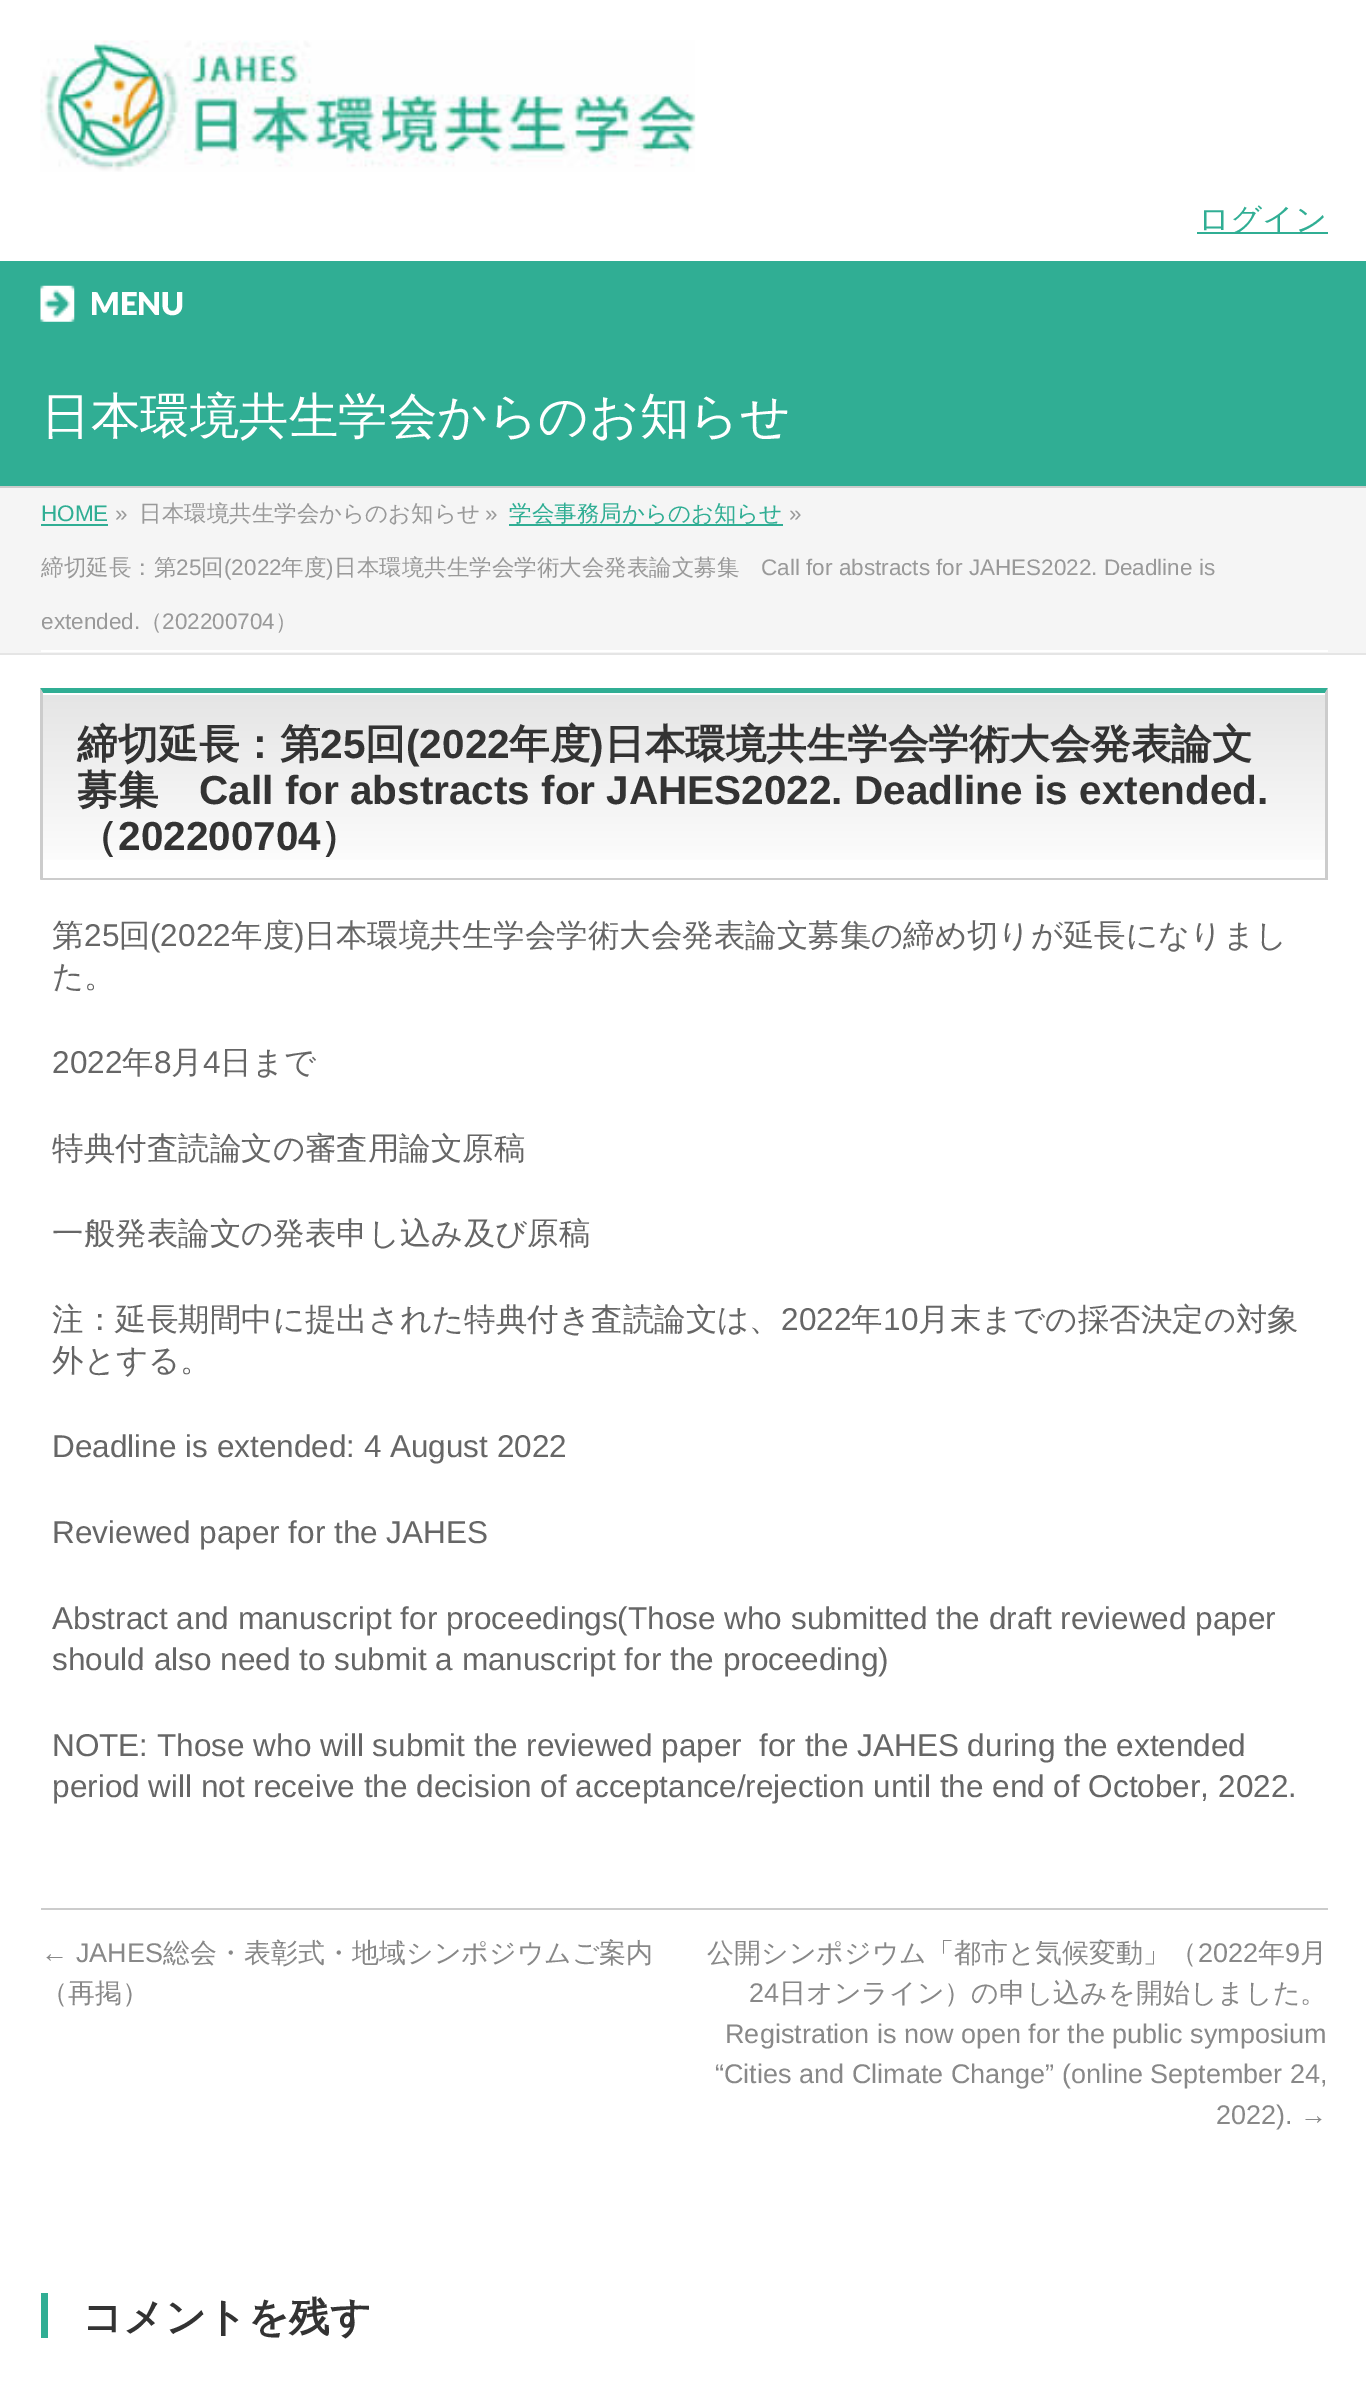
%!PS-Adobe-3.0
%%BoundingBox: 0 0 1366 2389
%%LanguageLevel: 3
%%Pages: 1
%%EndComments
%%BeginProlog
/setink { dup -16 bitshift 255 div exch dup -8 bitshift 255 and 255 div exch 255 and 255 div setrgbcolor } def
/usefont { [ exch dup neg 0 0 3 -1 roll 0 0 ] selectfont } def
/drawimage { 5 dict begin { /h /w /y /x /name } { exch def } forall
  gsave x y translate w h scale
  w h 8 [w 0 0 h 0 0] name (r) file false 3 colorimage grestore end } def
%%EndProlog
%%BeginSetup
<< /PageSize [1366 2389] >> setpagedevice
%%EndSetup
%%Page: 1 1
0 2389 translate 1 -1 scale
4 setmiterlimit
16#FFFFFF setink
0 0 1366 2389 rectfill
(img1.raw) 40 40 656 132 drawimage
16#30AE94 setink
1197 232 131 2 rectfill
/WenQuanYiZenHei-Medium 31.5 usefont
1198 230 moveto (ログイン) show
0 261 1366 81 rectfill
(img2.raw) 40 285 35 37 drawimage
/Lato-Black 31.5 usefont
16#FFFFFF setink
90 315 moveto (MENU) show
16#30AE94 setink
0 342 1366 144 rectfill
16#CCCCCC setink
0 486 1366 2 rectfill
/WenQuanYiZenHei-Medium 49.5 usefont
16#FFFFFF setink
41 433 moveto (日本環境共生学会からのお知らせ) show
[
    [0 488 1366 165 16#F5F5F5]
    [0 653 1366 2 16#E5E5E5]
    [41 650 1287 2 16#FFFFFF]
] { aload pop setink rectfill } forall
/LiberationSans-Regular 22.5 usefont
16#30AE94 setink
41 521 moveto (HOME) show
41 524 67 2 rectfill
16#999999 setink
115 521 moveto (») show
/WenQuanYiZenHei-Medium 22.5 usefont
139 521 moveto (日本環境共生学会からのお知らせ) show
/LiberationSans-Regular 22.5 usefont
485 521 moveto (») show
16#30AE94 setink
509 524 274 2 rectfill
/WenQuanYiZenHei-Medium 22.5 usefont
509 521 moveto (学会事務局からのお知らせ) show
/LiberationSans-Regular 22.5 usefont
16#999999 setink
789 521 moveto (») show
/WenQuanYiZenHei-Medium 22.5 usefont
41 575 moveto (締切延長：第) show
/LiberationSans-Regular 22.5 usefont
176 575 moveto (25) show
/WenQuanYiZenHei-Medium 22.5 usefont
201 575 moveto (回) show
/LiberationSans-Regular 22.5 usefont
224 575 moveto (\(2022) show
/WenQuanYiZenHei-Medium 22.5 usefont
281 575 moveto (年度) show
/LiberationSans-Regular 22.5 usefont
326 575 moveto (\)) show
/WenQuanYiZenHei-Medium 22.5 usefont
334 575 moveto (日本環境共生学会学術大会発表論文募集) show
/LiberationSans-Regular 22.5 usefont
761 575 moveto (Call for abstracts for JAHES2022. Deadline is) show
41 629 moveto (extended.) show
/WenQuanYiZenHei-Medium 22.5 usefont
140 629 moveto (（) show
/LiberationSans-Regular 22.5 usefont
162 629 moveto (202200704) show
/WenQuanYiZenHei-Medium 22.5 usefont
275 629 moveto (）) show
gsave 43 695 moveto 1325 695 lineto 1325 860 lineto 43 860 lineto closepath clip newpath
<< /ShadingType 2 /ColorSpace /DeviceRGB /Coords [43 693 43 878] /Extend [true true] /Function << /FunctionType 2 /Domain [0 1] /C0 [0.898 0.898 0.898] /C1 [1 1 1] /N 1 >> >> shfill grestore
16#30AE94 setink
40 688 moveto 1328 688 lineto 1325 693 lineto 43 693 lineto closepath fill
16#CCCCCC setink
1328 688 moveto 1328 880 lineto 1325 878 lineto 1325 693 lineto closepath fill
41 878 1287 2 rectfill
40 880 moveto 40 688 lineto 43 693 lineto 43 878 lineto closepath fill
/WenQuanYiZenHei-Bold 40.5 usefont
16#333333 setink
77 758 moveto (締切延長：第) show
/LiberationSans-Bold 40.5 usefont
320 758 moveto (25) show
/WenQuanYiZenHei-Bold 40.5 usefont
365 758 moveto (回) show
/LiberationSans-Bold 40.5 usefont
406 758 moveto (\(2022) show
/WenQuanYiZenHei-Bold 40.5 usefont
509 758 moveto (年度) show
/LiberationSans-Bold 40.5 usefont
590 758 moveto (\)) show
/WenQuanYiZenHei-Bold 40.5 usefont
604 758 moveto (日本環境共生学会学術大会発表論文) show
77 804 moveto (募集) show
/LiberationSans-Bold 40.5 usefont
199 804 moveto (Call for abstracts for JAHES2022. Deadline is extended.) show
/WenQuanYiZenHei-Bold 40.5 usefont
77 850 moveto (（) show
/LiberationSans-Bold 40.5 usefont
118 850 moveto (202200704) show
/WenQuanYiZenHei-Bold 40.5 usefont
320 850 moveto (）) show
/WenQuanYiZenHei-Medium 31.5 usefont
16#666666 setink
52 946 moveto (第) show
/LiberationSans-Regular 31.5 usefont
84 946 moveto (25) show
/WenQuanYiZenHei-Medium 31.5 usefont
119 946 moveto (回) show
/LiberationSans-Regular 31.5 usefont
150 946 moveto (\(2022) show
/WenQuanYiZenHei-Medium 31.5 usefont
231 946 moveto (年度) show
/LiberationSans-Regular 31.5 usefont
294 946 moveto (\)) show
/WenQuanYiZenHei-Medium 31.5 usefont
304 946 moveto (日本環境共生学会学術大会発表論文募集の締め切りが延長になりまし) show
52 987 moveto (た。) show
/LiberationSans-Regular 31.5 usefont
52 1073 moveto (2022) show
/WenQuanYiZenHei-Medium 31.5 usefont
122 1073 moveto (年) show
/LiberationSans-Regular 31.5 usefont
154 1073 moveto (8) show
/WenQuanYiZenHei-Medium 31.5 usefont
171 1073 moveto (月) show
/LiberationSans-Regular 31.5 usefont
203 1073 moveto (4) show
/WenQuanYiZenHei-Medium 31.5 usefont
[
    [(日まで) 220 1073]
    [(特典付査読論文の審査用論文原稿) 52 1159]
    [(一般発表論文の発表申し込み及び原稿) 52 1244]
    [(注：延長期間中に提出された特典付き査読論文は、) 52 1330]
] { aload pop moveto show } forall
/LiberationSans-Regular 31.5 usefont
781 1330 moveto (2022) show
/WenQuanYiZenHei-Medium 31.5 usefont
851 1330 moveto (年) show
/LiberationSans-Regular 31.5 usefont
883 1330 moveto (10) show
/WenQuanYiZenHei-Medium 31.5 usefont
918 1330 moveto (月末までの採否決定の対象) show
52 1371 moveto (外とする。) show
/LiberationSans-Regular 31.5 usefont
[
    [(Deadline is extended: 4 August 2022) 52 1457]
    [(Reviewed paper for the JAHES) 52 1543]
    [(Abstract and manuscript for proceedings\(Those who submitted the draft reviewed paper) 52 1629]
    [(should also need to submit a manuscript for the proceeding\)) 52 1670]
    [(NOTE: Those who will submit the reviewed paper  for the JAHES during the extended) 52 1756]
    [(period will not receive the decision of acceptance/rejection until the end of October, 2022.) 52 1797]
] { aload pop moveto show } forall
16#CCCCCC setink
41 1908 1287 2 rectfill
/LiberationSans-Regular 27 usefont
16#888888 setink
41 1962 moveto (← JAHES) show
/WenQuanYiZenHei-Medium 27 usefont
[
    [(総会・表彰式・地域シンポジウムご案内) 163 1962]
    [(（再掲）) 41 2002]
    [(公開シンポジウム「都市と気候変動」（) 707 1962]
] { aload pop moveto show } forall
/LiberationSans-Regular 27 usefont
1198 1962 moveto (2022) show
/WenQuanYiZenHei-Medium 27 usefont
1258 1962 moveto (年) show
/LiberationSans-Regular 27 usefont
1285 1962 moveto (9) show
/WenQuanYiZenHei-Medium 27 usefont
1300 1962 moveto (月) show
/LiberationSans-Regular 27 usefont
749 2002 moveto (24) show
/WenQuanYiZenHei-Medium 27 usefont
779 2002 moveto (日オンライン）の申し込みを開始しました。) show
/LiberationSans-Regular 27 usefont
[
    [(Registration is now open for the public symposium) 725 2043]
    [(“Cities and Climate Change” \(online September 24,) 715 2083]
    [(2022\). →) 1216 2124]
] { aload pop moveto show } forall
16#30AE94 setink
41 2293 7 45 rectfill
/WenQuanYiZenHei-Bold 40.5 usefont
16#333333 setink
82 2331 moveto (コメントを残す) show
showpage
%%EOF
